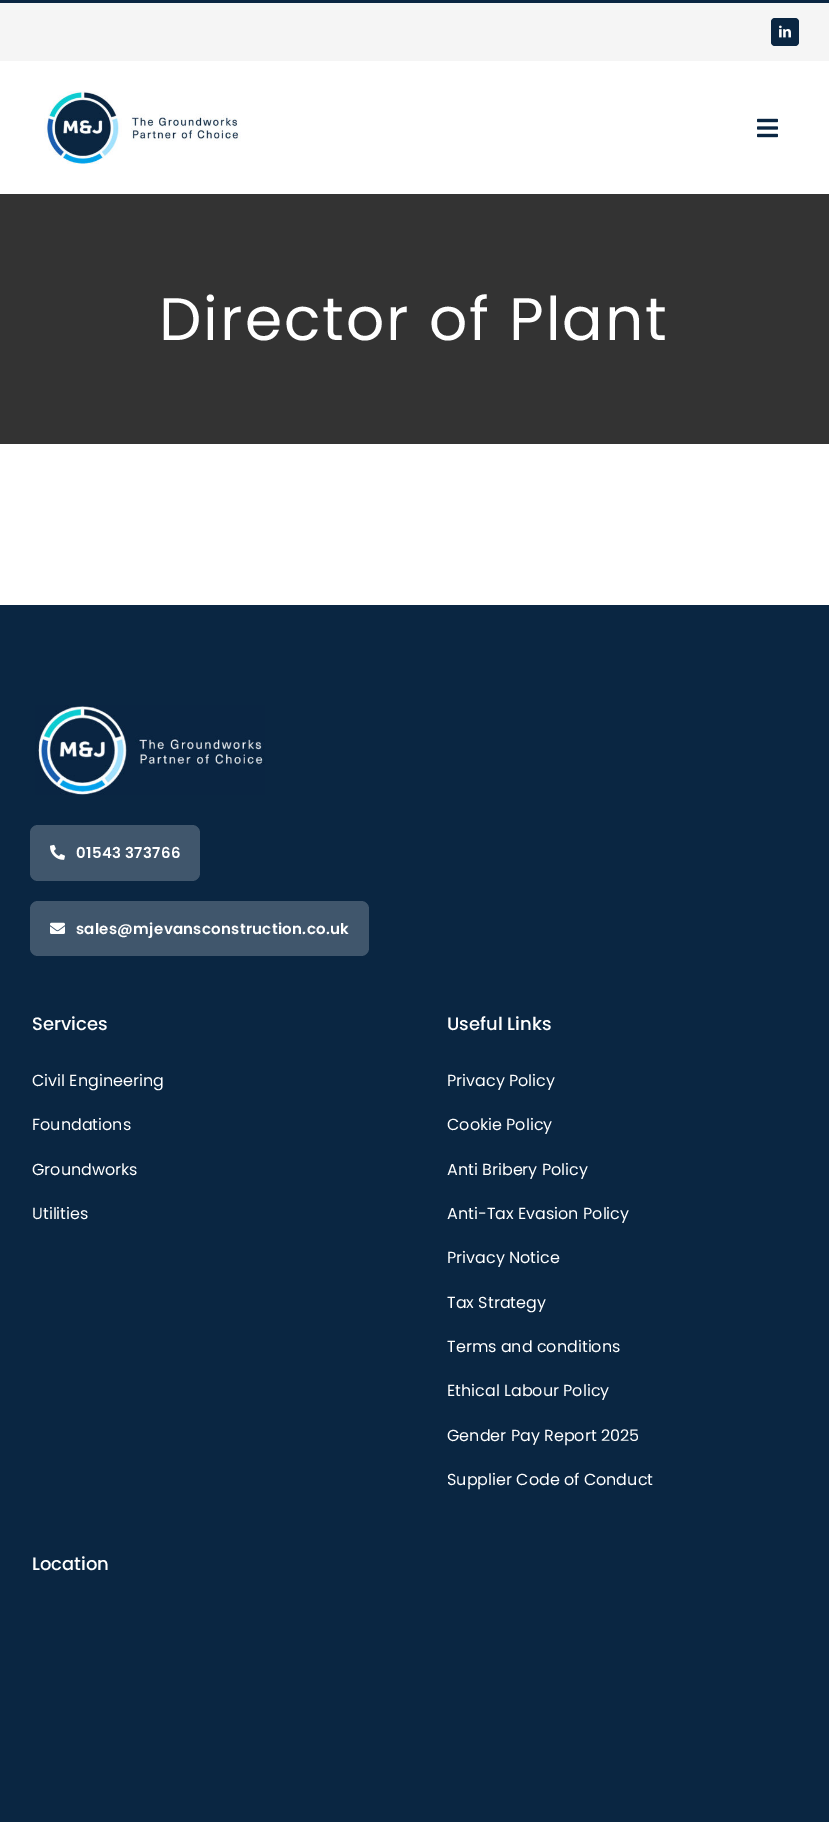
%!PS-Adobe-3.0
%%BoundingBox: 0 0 829 1822
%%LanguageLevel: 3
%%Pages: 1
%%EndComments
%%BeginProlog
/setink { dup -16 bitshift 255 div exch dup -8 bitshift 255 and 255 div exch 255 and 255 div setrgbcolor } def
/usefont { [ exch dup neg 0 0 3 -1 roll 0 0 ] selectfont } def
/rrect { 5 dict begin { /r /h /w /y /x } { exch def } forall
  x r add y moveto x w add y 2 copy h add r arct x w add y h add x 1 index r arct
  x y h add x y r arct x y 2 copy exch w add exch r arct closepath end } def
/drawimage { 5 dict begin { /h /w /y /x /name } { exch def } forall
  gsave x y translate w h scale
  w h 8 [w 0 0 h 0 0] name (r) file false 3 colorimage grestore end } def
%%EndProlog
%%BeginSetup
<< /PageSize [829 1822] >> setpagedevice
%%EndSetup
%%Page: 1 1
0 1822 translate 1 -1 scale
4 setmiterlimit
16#FFFFFF setink
0 0 829 1822 rectfill
16#F5F5F5 setink
0 3 829 58 rectfill
16#0A2642 setink
0 0 829 3 rectfill
771 18 28 28 4 rrect fill
(img1.raw) 779 25 12 13 drawimage
(img2.raw) 44 91 197 73 drawimage
(img3.raw) 757 118 21 20 drawimage
16#333333 setink
0 194 829 250 rectfill
/Poppins-Regular 60 usefont
16#FFFFFF setink
159 340 moveto 2 0 (Director of Plant) ashow
16#0A2642 setink
0 605 829 1217 rectfill
(img4.raw) 35 705 230 90 drawimage
16#40566C setink
30 825 170 56 8 rrect fill
(img5.raw) 50 844 15 16 drawimage
/Poppins-SemiBold 15 usefont
16#FFFFFF setink
76 858 moveto 0.3 0 (01543 373766) ashow
16#40566C setink
30 901 339 55 8 rrect fill
(img6.raw) 50 922 15 12 drawimage
16#FFFFFF setink
76 934 moveto 0.3 0 (sales@mjevansconstruction.co.uk) ashow
/Poppins-Medium 18 usefont
32 1030 moveto (Services) show
/Poppins-Regular 16 usefont
[
    [(Civil Engineering) 32 1086]
    [(Foundations) 32 1130]
    [(Groundworks) 32 1175]
    [(Utilities) 32 1219]
] { aload pop moveto show } forall
/Poppins-Medium 18 usefont
447 1030 moveto (Useful Links) show
/Poppins-Regular 16 usefont
[
    [(Privacy Policy) 447 1086]
    [(Cookie Policy) 447 1130]
    [(Anti Bribery Policy) 447 1175]
    [(Anti-Tax Evasion Policy) 447 1219]
    [(Privacy Notice) 447 1263]
    [(Tax Strategy) 447 1308]
    [(Terms and conditions) 447 1352]
    [(Ethical Labour Policy) 447 1396]
    [(Gender Pay Report 2025) 447 1441]
    [(Supplier Code of Conduct) 447 1485]
] { aload pop moveto show } forall
/Poppins-Medium 18 usefont
32 1570 moveto (Location) show
showpage
%%EOF
